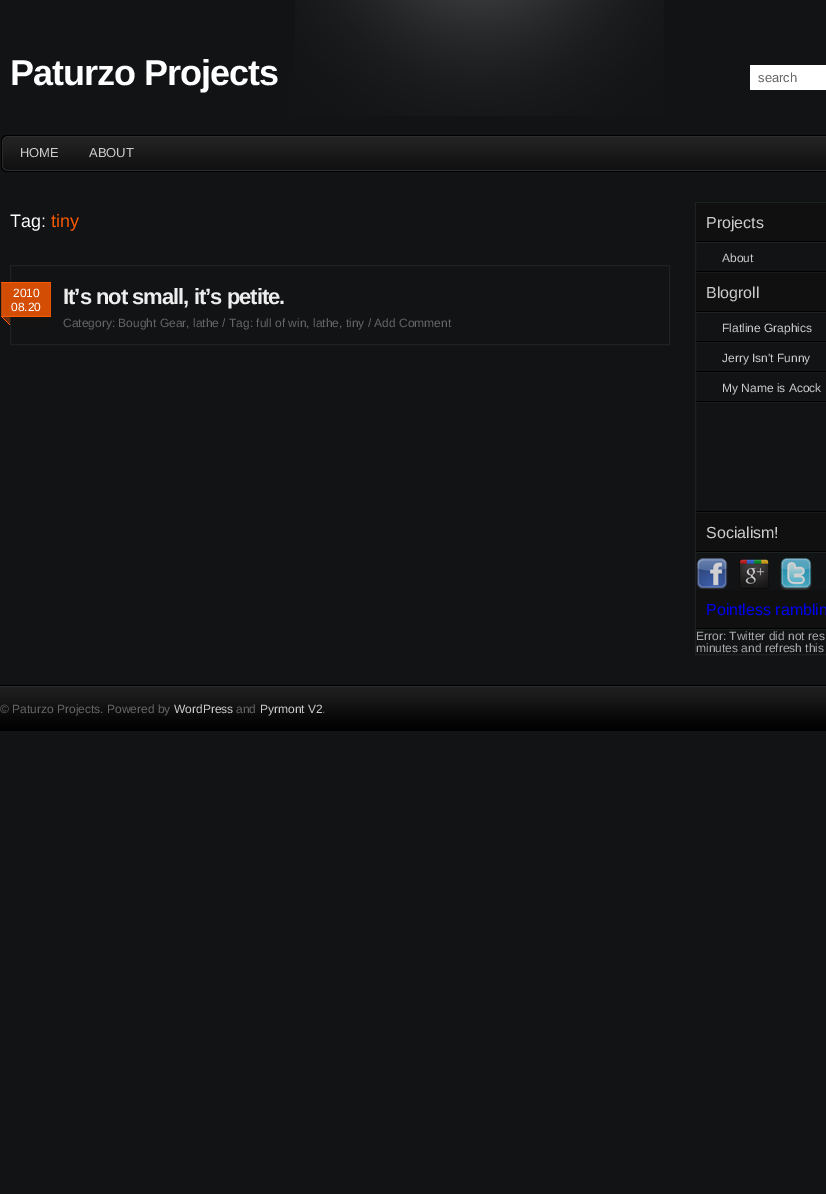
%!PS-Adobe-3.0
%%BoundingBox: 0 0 826 1194
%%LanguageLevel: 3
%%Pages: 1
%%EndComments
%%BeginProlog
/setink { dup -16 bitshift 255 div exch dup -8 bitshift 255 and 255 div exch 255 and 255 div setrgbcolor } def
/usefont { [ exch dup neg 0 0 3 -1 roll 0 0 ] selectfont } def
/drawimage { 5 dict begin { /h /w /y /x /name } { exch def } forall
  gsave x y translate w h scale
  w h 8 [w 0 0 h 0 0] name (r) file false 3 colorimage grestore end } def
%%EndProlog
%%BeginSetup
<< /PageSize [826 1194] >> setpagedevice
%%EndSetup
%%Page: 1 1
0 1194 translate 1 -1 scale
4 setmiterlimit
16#121315 setink
0 0 826 1194 rectfill
(img1.raw) 295 0 369 116 drawimage
/LiberationSans-Bold 36 usefont
16#FFFFFF setink
10 85 moveto -1 0 (Paturzo Projects) ashow
750 65 76 25 rectfill
/LiberationSans-Regular 13 usefont
16#666666 setink
758 82 moveto (search) show
(img2.raw) 1 135 825 37 drawimage
16#CCCCCC setink
20 157 moveto (HOME) show
89 157 moveto (ABOUT) show
/LiberationSans-Regular 18 usefont
16#FFFFFF setink
10 227 moveto (Tag:) show
16#FF5A00 setink
51 227 moveto (tiny) show
16#1F2223 setink
10.5 265.5 659 79 rectstroke
(img3.raw) 1 282 50 43 drawimage
/LiberationSans-Regular 12 usefont
16#FFFFFF setink
13 297 moveto (2010) show
11 311 moveto (08.20) show
/LiberationSans-Bold 22 usefont
16#EEEEEE setink
63 304 moveto -1 0 (It’s not small, it’s petite.) ashow
/LiberationSans-Regular 12 usefont
16#666666 setink
63 327 moveto (Category: Bought Gear, lathe / Tag: full of win, lathe, tiny / Add Comment) show
16#1F2223 setink
695.5 202.5 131 452 rectstroke
16#101010 setink
696 203 130 38 rectfill
(img4.raw) 696 241 130 2 drawimage
/LiberationSans-Regular 16 usefont
16#CCCCCC setink
706 228 moveto (Projects) show
(img5.raw) 696 271 130 2 drawimage
/LiberationSans-Regular 12 usefont
722 262 moveto (About) show
16#101010 setink
696 273 130 38 rectfill
(img4.raw) 696 311 130 2 drawimage
/LiberationSans-Regular 16 usefont
16#CCCCCC setink
706 298 moveto (Blogroll) show
(img5.raw) 696 341 130 2 drawimage
/LiberationSans-Regular 12 usefont
722 332 moveto (Flatline Graphics) show
(img5.raw) 696 371 130 2 drawimage
722 362 moveto (Jerry Isn't Funny) show
(img5.raw) 696 401 130 2 drawimage
722 392 moveto (My Name is Acock) show
(img5.raw) 696 511 130 2 drawimage
16#101010 setink
696 513 130 38 rectfill
(img4.raw) 696 551 130 2 drawimage
/LiberationSans-Regular 16 usefont
16#CCCCCC setink
706 538 moveto (Socialism!) show
(img6.raw) 696 558 32 31 drawimage
(img7.raw) 739 559 30 30 drawimage
(img8.raw) 780 558 32 32 drawimage
16#101010 setink
696 590 130 38 rectfill
(img4.raw) 696 628 130 2 drawimage
16#0000EE setink
706 615 moveto (Pointless ramblin) show
/LiberationSans-Regular 12 usefont
16#AAAAAA setink
696 640 moveto (Error: Twitter did not res) show
696 652 moveto (minutes and refresh this) show
(img9.raw) 0 685 826 46 drawimage
16#666666 setink
0 713 moveto (© Paturzo Projects. Powered by) show
16#CCCCCC setink
174 713 moveto (WordPress) show
16#666666 setink
236 713 moveto (and) show
16#CCCCCC setink
260 713 moveto (Pyrmont V2) show
16#666666 setink
322 713 moveto (.) show
showpage
%%EOF
